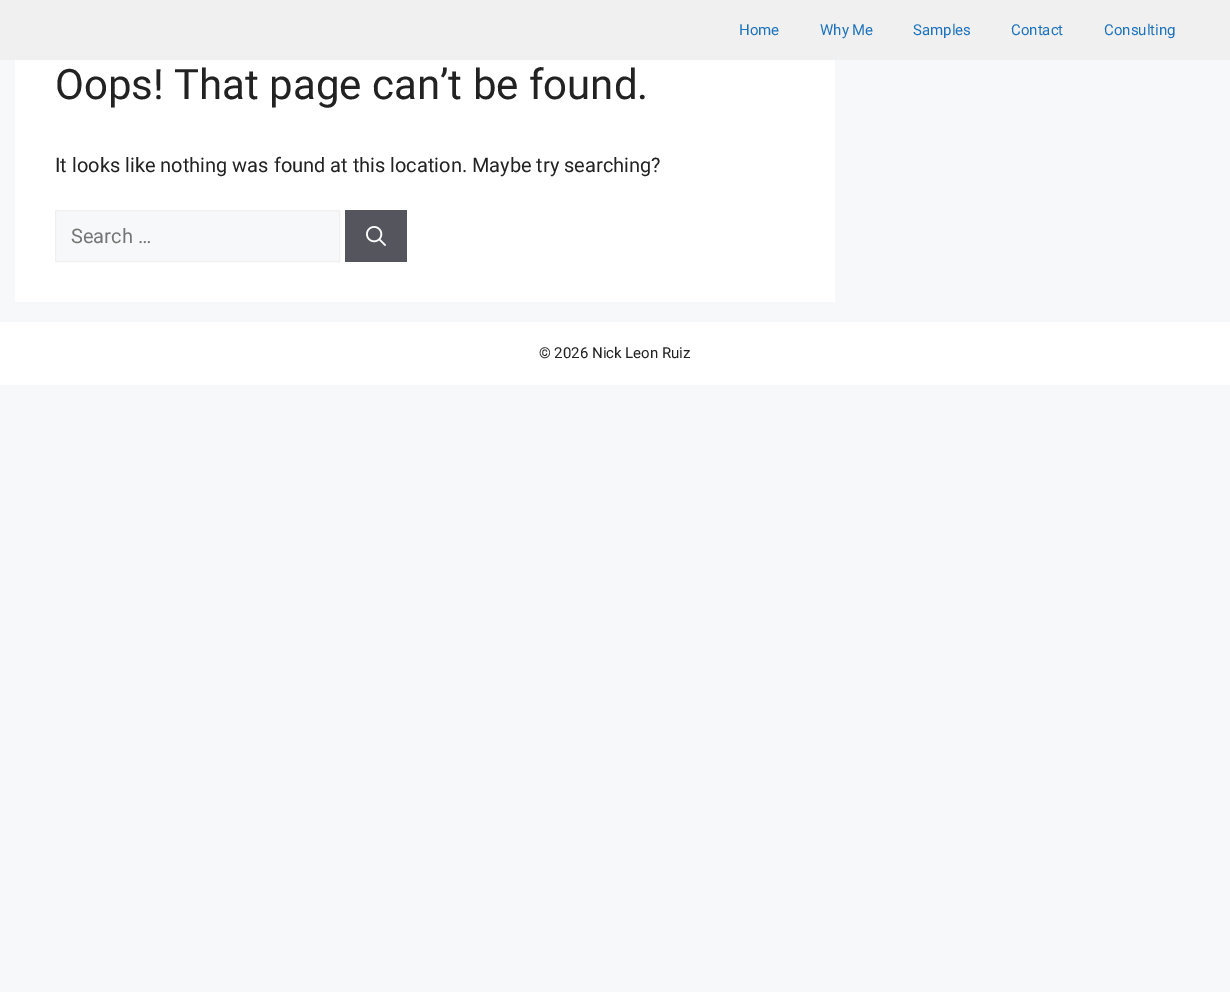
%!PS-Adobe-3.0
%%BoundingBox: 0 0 1230 992
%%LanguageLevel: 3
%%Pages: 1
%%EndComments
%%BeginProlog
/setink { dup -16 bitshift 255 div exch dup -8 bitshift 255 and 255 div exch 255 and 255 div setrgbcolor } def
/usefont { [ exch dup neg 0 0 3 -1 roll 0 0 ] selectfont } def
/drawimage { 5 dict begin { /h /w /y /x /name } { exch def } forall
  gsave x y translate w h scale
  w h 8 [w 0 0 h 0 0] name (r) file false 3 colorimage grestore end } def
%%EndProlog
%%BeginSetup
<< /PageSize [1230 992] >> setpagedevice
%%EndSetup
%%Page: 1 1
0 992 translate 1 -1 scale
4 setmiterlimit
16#F7F8F9 setink
0 0 1230 992 rectfill
16#F0F0F0 setink
0 0 1230 60 rectfill
/Roboto-Regular 15 usefont
16#1E73BE setink
[
    [(Home) 739 35]
    [(Why Me) 820 35]
    [(Samples) 913 35]
    [(Contact) 1011 35]
    [(Consulting) 1104 35]
] { aload pop moveto show } forall
16#FFFFFF setink
15 60 820 242 rectfill
/Roboto-Regular 42 usefont
16#222222 setink
55 99 moveto (Oops! That page can’t be found.) show
/Roboto-Regular 20 usefont
55 172 moveto (It looks like nothing was found at this location. Maybe try searching?) show
16#F7F8F9 setink
55.5 210.5 moveto 339.5 210.5 lineto 339.5 261.5 lineto 55.5 261.5 lineto closepath gsave fill grestore
16#F0F0F0 setink
stroke
16#757575 setink
71 243 moveto (Search …) show
16#55555E setink
345 210 62 52 rectfill
(img1.raw) 366 226 20 20 drawimage
16#FFFFFF setink
0 322 1230 63 rectfill
/Roboto-Regular 15 usefont
16#222222 setink
539 358 moveto (© 2026 Nick Leon Ruiz) show
showpage
%%EOF
